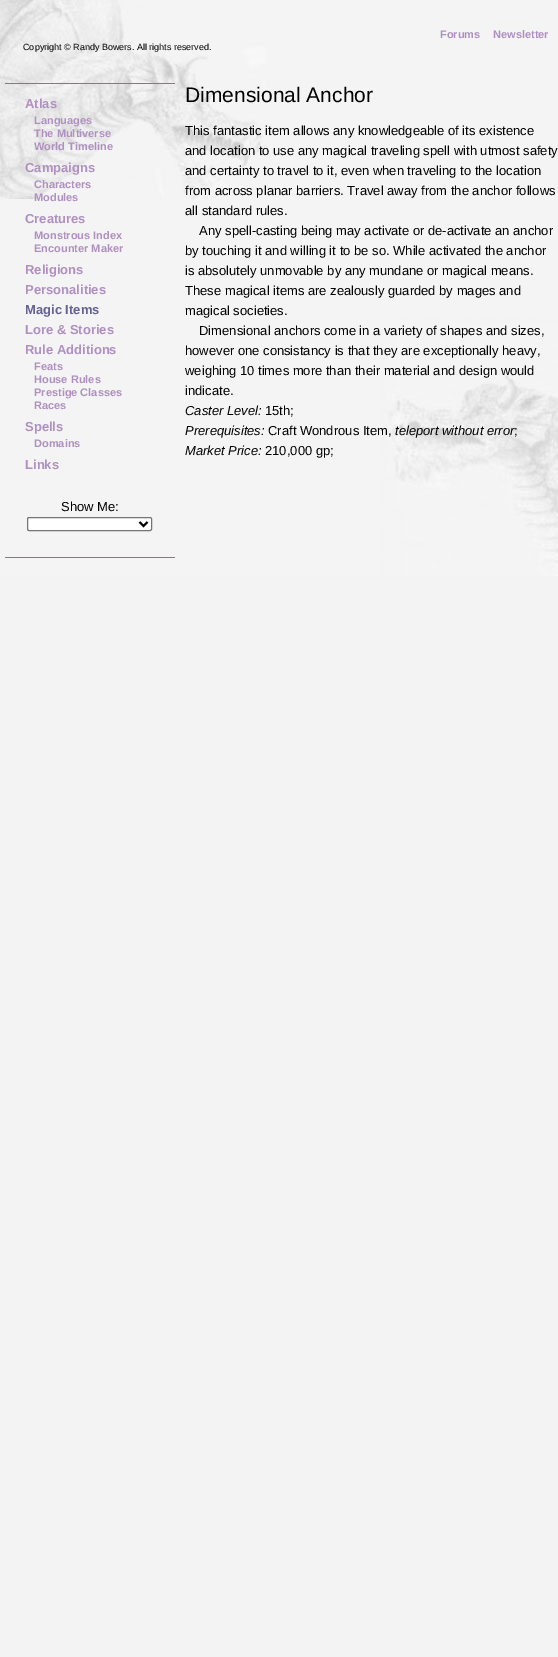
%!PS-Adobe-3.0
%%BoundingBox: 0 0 558 1657
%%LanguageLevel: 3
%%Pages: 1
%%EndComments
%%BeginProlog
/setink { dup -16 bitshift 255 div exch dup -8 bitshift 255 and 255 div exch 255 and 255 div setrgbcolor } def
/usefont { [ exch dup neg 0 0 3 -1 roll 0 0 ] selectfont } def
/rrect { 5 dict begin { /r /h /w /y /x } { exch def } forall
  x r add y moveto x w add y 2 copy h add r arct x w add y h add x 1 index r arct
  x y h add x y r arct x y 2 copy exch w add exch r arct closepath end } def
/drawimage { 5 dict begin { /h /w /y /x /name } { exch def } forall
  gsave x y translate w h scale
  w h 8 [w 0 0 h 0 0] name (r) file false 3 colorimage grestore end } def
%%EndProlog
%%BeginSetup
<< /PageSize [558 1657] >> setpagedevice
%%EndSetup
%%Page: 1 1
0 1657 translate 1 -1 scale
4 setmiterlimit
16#F3F3F3 setink
0 0 558 1657 rectfill
(img1.raw) 0 0 558 576 drawimage
/LiberationSans-Bold 11 usefont
16#AF90C0 setink
440 38 moveto (Forums) show
493 38 moveto (Newsletter) show
/LiberationSans-Regular 9 usefont
16#000000 setink
23 50 moveto (Copyright © Randy Bowers. All rights reserved.) show
/LiberationSans-Regular 21 usefont
185 102 moveto (Dimensional Anchor) show
16#827C81 setink
5 83 170 1 rectfill
/LiberationSans-Bold 13 usefont
16#AF90C0 setink
25 108 moveto (Atlas) show
/LiberationSans-Bold 11 usefont
[
    [(Languages) 34 124]
    [(The Multiverse) 34 137]
    [(World Timeline) 34 150]
] { aload pop moveto show } forall
/LiberationSans-Bold 13 usefont
25 172 moveto (Campaigns) show
/LiberationSans-Bold 11 usefont
34 188 moveto (Characters) show
34 201 moveto (Modules) show
/LiberationSans-Bold 13 usefont
25 223 moveto (Creatures) show
/LiberationSans-Bold 11 usefont
34 239 moveto (Monstrous Index) show
34 252 moveto (Encounter Maker) show
/LiberationSans-Bold 13 usefont
25 274 moveto (Religions) show
25 294 moveto (Personalities) show
16#666290 setink
25 314 moveto (Magic Items) show
16#AF90C0 setink
25 334 moveto (Lore & Stories) show
25 354 moveto (Rule Additions) show
/LiberationSans-Bold 11 usefont
[
    [(Feats) 34 370]
    [(House Rules) 34 383]
    [(Prestige Classes) 34 396]
    [(Races) 34 409]
] { aload pop moveto show } forall
/LiberationSans-Bold 13 usefont
25 431 moveto (Spells) show
/LiberationSans-Bold 11 usefont
34 447 moveto (Domains) show
/LiberationSans-Bold 13 usefont
25 469 moveto (Links) show
/LiberationSans-Regular 13 usefont
16#000000 setink
61 511 moveto (Show Me:) show
16#FFFFFF setink
27.5 517.5 124 13 1.5 rrect gsave fill grestore
16#767676 setink
stroke
16#000000 setink
2 setlinewidth
139.5 522 moveto 143.5 526 lineto 147.5 522 lineto stroke
16#827C81 setink
5 557 170 1 rectfill
16#000000 setink
[
    [(This fantastic item allows any knowledgeable of its existence) 185 135]
    [(and location to use any magical traveling spell with utmost safety) 185 155]
    [(and certainty to travel to it, even when traveling to the location) 185 175]
    [(from across planar barriers. Travel away from the anchor follows) 185 195]
    [(all standard rules.) 185 215]
    [(Any spell-casting being may activate or de-activate an anchor) 199 235]
    [(by touching it and willing it to be so. While activated the anchor) 185 255]
    [(is absolutely unmovable by any mundane or magical means.) 185 275]
    [(These magical items are zealously guarded by mages and) 185 295]
    [(magical societies.) 185 315]
    [(Dimensional anchors come in a variety of shapes and sizes,) 199 335]
    [(however one consistancy is that they are exceptionally heavy,) 185 355]
    [(weighing 10 times more than their material and design would) 185 375]
    [(indicate.) 185 395]
] { aload pop moveto show } forall
/LiberationSans-Italic 13 usefont
185 415 moveto (Caster Level:) show
/LiberationSans-Regular 13 usefont
265 415 moveto (15th;) show
/LiberationSans-Italic 13 usefont
185 435 moveto (Prerequisites:) show
/LiberationSans-Regular 13 usefont
268 435 moveto (Craft Wondrous Item,) show
/LiberationSans-Italic 13 usefont
395 435 moveto (teleport without error) show
/LiberationSans-Regular 13 usefont
514 435 moveto (;) show
/LiberationSans-Italic 13 usefont
185 455 moveto (Market Price:) show
/LiberationSans-Regular 13 usefont
265 455 moveto (210,000 gp;) show
showpage
%%EOF
